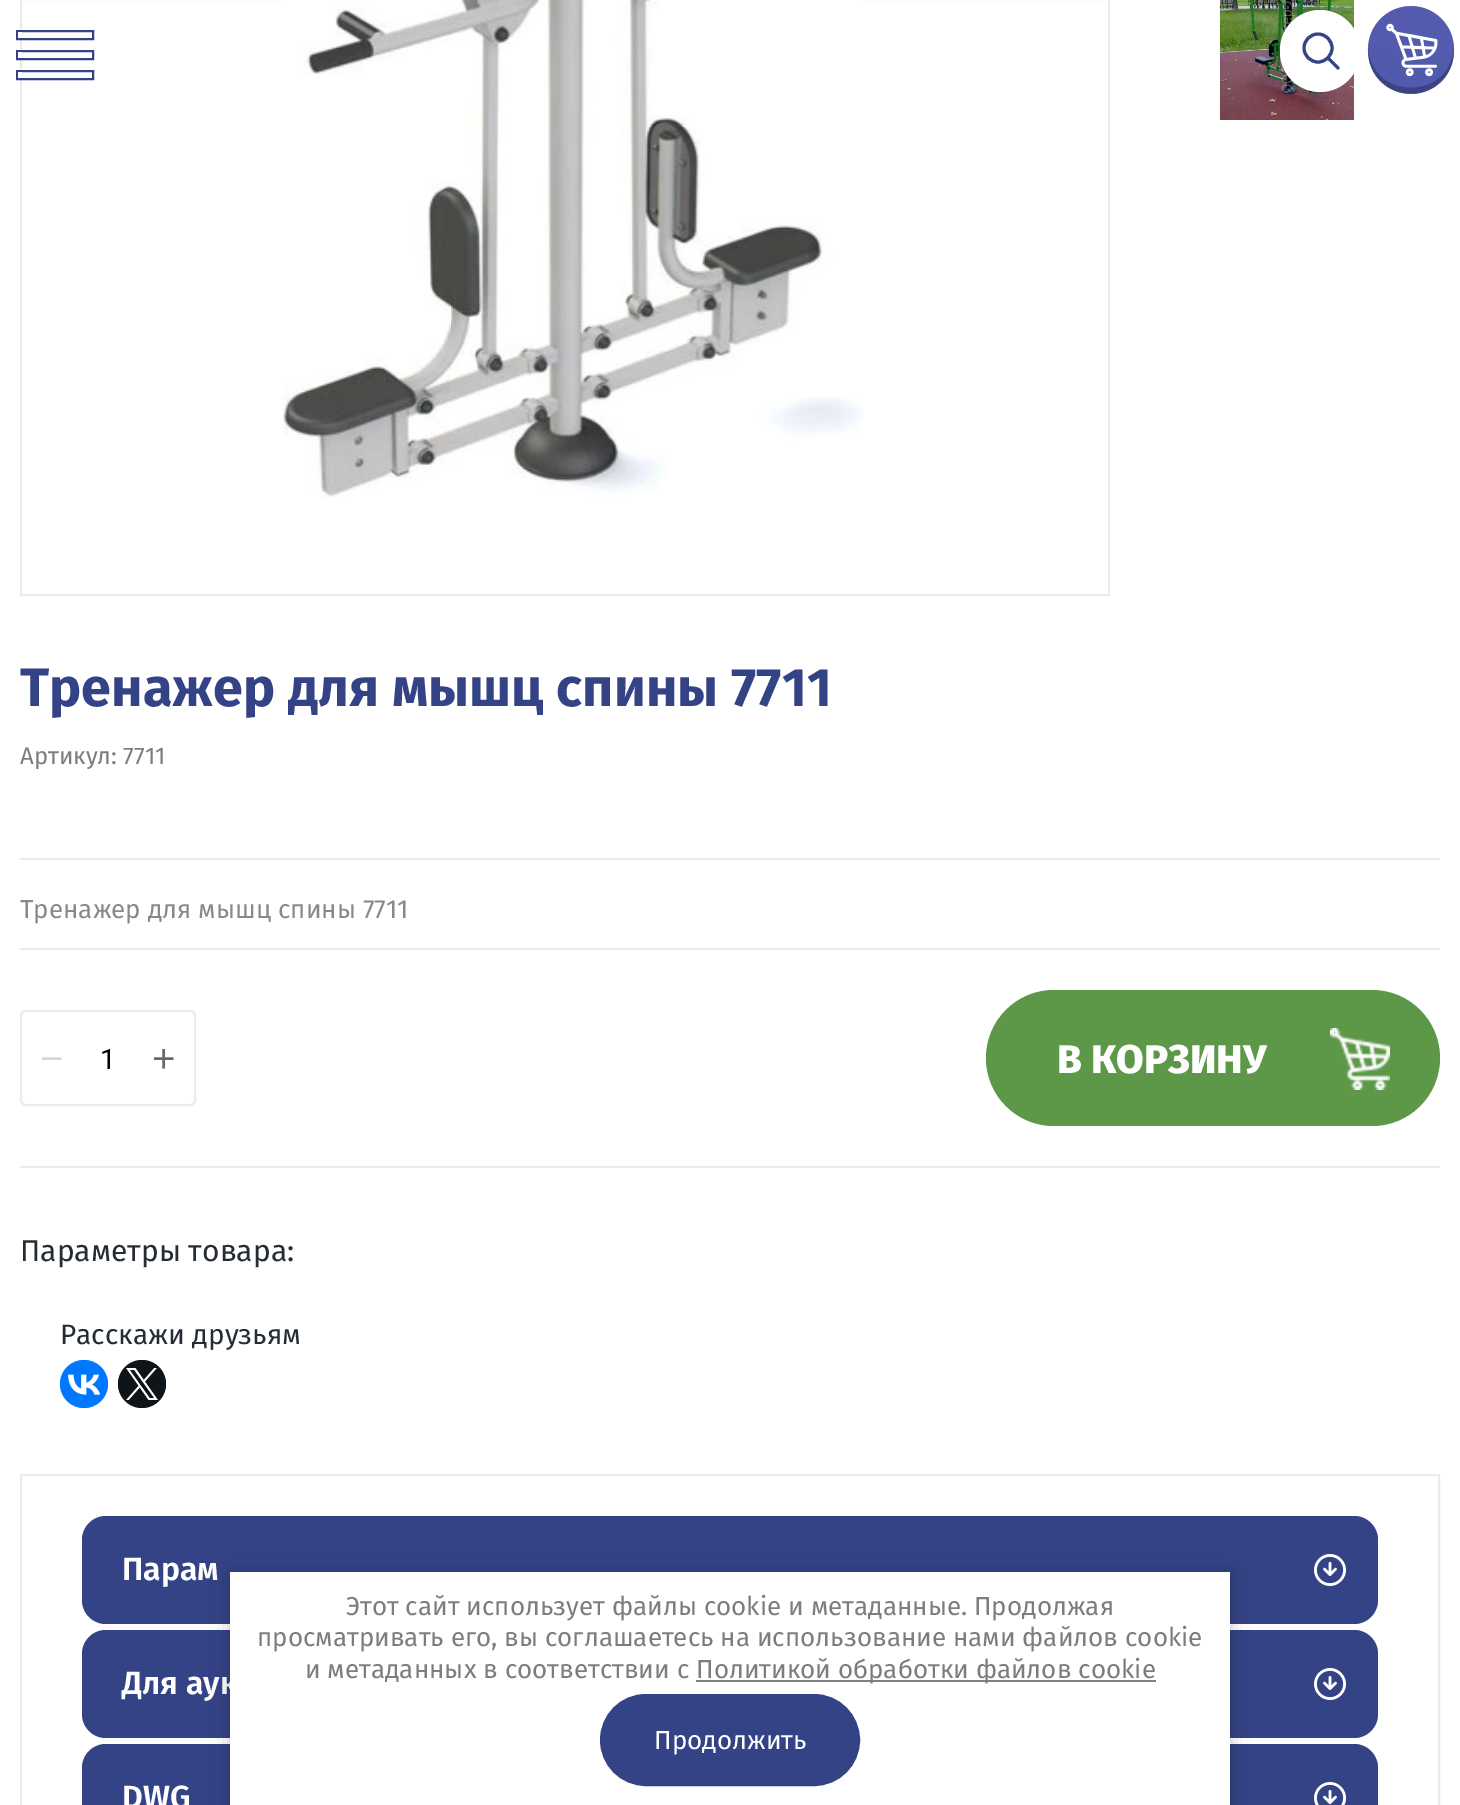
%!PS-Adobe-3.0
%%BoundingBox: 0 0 1460 1805
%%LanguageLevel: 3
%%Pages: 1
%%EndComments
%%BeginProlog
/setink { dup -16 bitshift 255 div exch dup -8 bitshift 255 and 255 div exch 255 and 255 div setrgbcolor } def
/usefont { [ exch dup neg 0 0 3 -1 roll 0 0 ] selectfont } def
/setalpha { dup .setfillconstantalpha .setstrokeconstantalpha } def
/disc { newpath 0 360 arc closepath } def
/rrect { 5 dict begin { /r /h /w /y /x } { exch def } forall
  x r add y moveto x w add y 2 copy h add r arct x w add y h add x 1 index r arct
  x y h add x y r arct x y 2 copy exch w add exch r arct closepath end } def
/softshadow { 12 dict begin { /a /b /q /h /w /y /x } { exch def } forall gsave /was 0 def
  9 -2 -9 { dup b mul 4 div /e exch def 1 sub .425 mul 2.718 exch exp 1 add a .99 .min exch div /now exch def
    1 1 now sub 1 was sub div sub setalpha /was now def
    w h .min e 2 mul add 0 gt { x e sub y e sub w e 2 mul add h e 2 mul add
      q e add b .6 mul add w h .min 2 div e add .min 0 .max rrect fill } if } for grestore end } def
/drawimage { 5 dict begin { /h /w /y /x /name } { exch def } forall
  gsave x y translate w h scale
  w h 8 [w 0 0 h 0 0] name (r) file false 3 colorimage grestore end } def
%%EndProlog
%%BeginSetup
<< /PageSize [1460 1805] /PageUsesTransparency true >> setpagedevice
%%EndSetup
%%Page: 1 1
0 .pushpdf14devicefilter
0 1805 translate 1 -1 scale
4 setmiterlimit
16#FFFFFF setink
0 0 1460 1805 rectfill
16#EBEBEB setink
2 setlinewidth
21 -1 1088 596 rectstroke
16#344386 setink
17 31 76 8 rectstroke
16#FFFFFF setink
18 32 4 6 rectfill
16#344386 setink
17 51 76 8 rectstroke
16#FFFFFF setink
18 52 4 6 rectfill
16#344386 setink
17 71 76 8 rectstroke
16#FFFFFF setink
18 72 4 6 rectfill
(img3.raw) 1219 0 135 120 drawimage
1280 10 80 82 40 rrect fill
16#344386 setink
3.1 setlinewidth
1318 48 14 disc stroke
1 setlinecap
1338 68 moveto 1328 58 lineto stroke
16#334386 setink
1368 6 86 88 43 rrect fill
(img1.raw) 1368 6 86 88 drawimage
0.25 setalpha
16#000000 setink
1454 48 moveto 1450 101 1372 101 1368 48 curveto 1367 109 1455 109 1454 48 curveto closepath fill
1 setalpha
(img2.raw) 282 0 581 498 drawimage
/FiraSans-Bold 54 usefont
16#344386 setink
20 706 moveto (Тренажер для мышц спины 7711) show
16#EBEBEB setink
20 858 1420 2 rectfill
/FiraSans-Regular 24 usefont
16#7D7D7D setink
20 764 moveto (Артикул: 7711) show
16#EBEBEB setink
20 948 1420 2 rectfill
/FiraSans-Regular 26 usefont
16#898989 setink
20 918 moveto (Тренажер для мышц спины 7711) show
16#EBEBEB setink
2 setlinewidth
0 setlinecap
21 1011 174 94 5 rrect stroke
/LiberationSans-Regular 40 usefont
16#D6D6D6 setink
40 1072 moveto (−) show
/Roboto-Regular 28 usefont
16#000000 setink
100 1069 moveto (1) show
/LiberationSans-Regular 40 usefont
16#696969 setink
152 1072 moveto (+) show
16#5D9748 setink
986 990 454 136 68 rrect fill
/FiraSans-ExtraBold 40 usefont
16#FFFFFF setink
1057 1073 moveto (В КОРЗИНУ) show
(img4.raw) 1330 1028 60 62 drawimage
16#EBEBEB setink
20 1166 1420 2 rectfill
/FiraSans-Regular 30 usefont
16#252C36 setink
20 1261 moveto (Параметры товара:) show
/FiraSans-Regular 28 usefont
60 1344 moveto (Расскажи друзьям) show
16#0077FF setink
84 1384 24 disc fill
(img5.raw) 68 1374 33 21 drawimage
16#0F1419 setink
142 1384 24 disc fill
(img6.raw) 126 1368 32 32 drawimage
16#EBEBEB setink
21 1475 1418 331 rectstroke
16#344386 setink
82 1516 1296 108 24 rrect fill
/FiraSans-SemiBold 32 usefont
16#FFFFFF setink
122 1580 moveto (Парам) show
(img7.raw) 1314 1554 32 32 drawimage
16#344386 setink
82 1630 1296 108 24 rrect fill
16#FFFFFF setink
122 1694 moveto (Для аук) show
(img7.raw) 1314 1668 32 32 drawimage
16#344386 setink
82 1744 1296 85 24 rrect fill
16#FFFFFF setink
122 1808 moveto (DWG) show
(img8.raw) 1314 1782 32 23 drawimage
16#000000 setink
230 1574 1000 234 0 10 0.23 softshadow
16#FFFFFF setink
230 1572 1000 233 rectfill
/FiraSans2-Regular 26 usefont
16#7D7D7D setink
[
    [(Этот сайт использует файлы cookie и метаданные. Продолжая) 346 1615]
    [(просматривать его, вы соглашаетесь на использование нами файлов cookie) 257 1646]
    [(и метаданных в соответствии с) 305 1678]
] { aload pop moveto show } forall
16#808080 setink
696 1680 460 2 rectfill
16#7D7D7D setink
696 1678 moveto (Политикой обработки файлов cookie) show
16#334386 setink
602 1696 256 88 44 rrect gsave fill grestore
4 setlinewidth
stroke
16#FFFFFF setink
654 1749 moveto (Продолжить) show
.poppdf14devicefilter showpage
%%EOF
